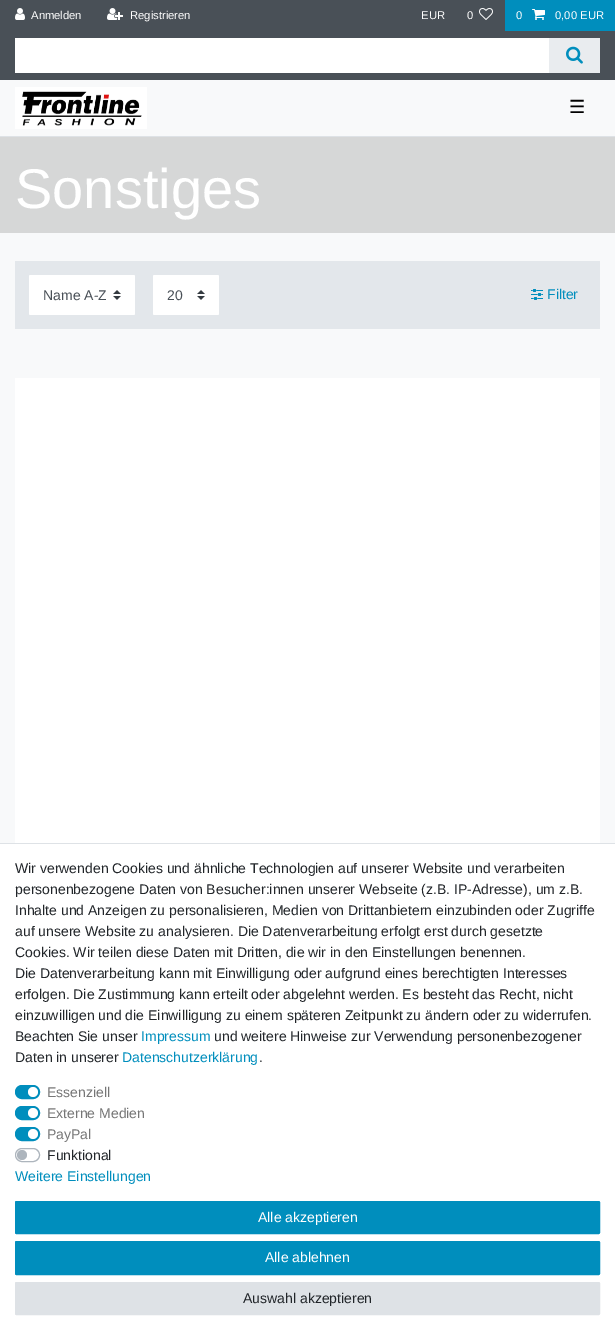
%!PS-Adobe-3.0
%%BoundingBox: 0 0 615 1336
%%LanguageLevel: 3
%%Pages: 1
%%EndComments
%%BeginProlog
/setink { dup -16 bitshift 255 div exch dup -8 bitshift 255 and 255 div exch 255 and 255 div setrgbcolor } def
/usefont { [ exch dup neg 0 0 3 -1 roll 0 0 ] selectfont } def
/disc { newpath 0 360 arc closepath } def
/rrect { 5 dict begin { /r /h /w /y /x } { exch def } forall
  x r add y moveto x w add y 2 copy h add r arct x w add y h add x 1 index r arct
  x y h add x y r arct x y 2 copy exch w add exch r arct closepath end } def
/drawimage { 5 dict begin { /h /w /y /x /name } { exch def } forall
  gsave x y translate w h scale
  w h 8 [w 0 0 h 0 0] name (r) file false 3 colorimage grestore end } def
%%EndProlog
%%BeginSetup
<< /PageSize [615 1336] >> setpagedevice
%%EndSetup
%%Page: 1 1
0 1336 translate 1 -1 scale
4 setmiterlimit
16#F8F9FA setink
0 0 615 1336 rectfill
16#495057 setink
0 0 615 80 rectfill
(img1.raw) 15 8 10 12 drawimage
/LiberationSans-Regular 11.25 usefont
16#FFFFFF setink
31 19 moveto (Anmelden) show
(img2.raw) 107 8 16 12 drawimage
[
    [(Registrieren) 130 19]
    [(EUR) 421 19]
    [(0) 467 19]
] { aload pop moveto show } forall
(img3.raw) 479 8 14 12 drawimage
16#008EBD setink
505 0 110 31 rectfill
16#FFFFFF setink
516 19 moveto (0) show
(img4.raw) 532 9 13 11 drawimage
555 19 moveto (0,00 EUR) show
15 38 534 35 rectfill
16#E9ECEF setink
549 38 51 35 rectfill
(img5.raw) 566 46 17 18 drawimage
16#DEE2E6 setink
0 136 615 1 rectfill
(img6.raw) 15 87 132 42 drawimage
/DejaVuSans-Regular 18 usefont
16#000000 setink
569 113 moveto (☰) show
16#D6D7D7 setink
0 137 615 96 rectfill
/LiberationSans-Regular 56 usefont
16#FFFFFF setink
15 208 moveto (Sonstiges) show
16#E3E7EB setink
15 261 585 68 rectfill
16#FFFFFF setink
29 275 106 40 1.5 rrect fill
(img7.raw) 113 290 8 10 drawimage
/LiberationSans-Regular 14 usefont
16#495057 setink
43 300 moveto (Name A-Z) show
16#FFFFFF setink
153 275 66 40 1.5 rrect fill
(img7.raw) 197 290 8 10 drawimage
16#495057 setink
167 300 moveto (20) show
(img8.raw) 531 289 12 11 drawimage
16#008EBD setink
547 299 moveto (Filter) show
[
    [15 378 585 465 16#FFFFFF]
    [0 844 615 492 16#FFFFFF]
    [0 843 615 1 16#DEE2E6]
] { aload pop setink rectfill } forall
16#212529 setink
[
    [(Wir verwenden Cookies und ähnliche Technologien auf unserer Website und verarbeiten) 15 873]
    [(personenbezogene Daten von Besucher:innen unserer Webseite \(z.B. IP-Adresse\), um z.B.) 15 894]
    [(Inhalte und Anzeigen zu personalisieren, Medien von Drittanbietern einzubinden oder Zugriffe) 15 915]
    [(auf unsere Website zu analysieren. Die Datenverarbeitung erfolgt erst durch gesetzte) 15 936]
    [(Cookies. Wir teilen diese Daten mit Dritten, die wir in den Einstellungen benennen.) 15 957]
    [(Die Datenverarbeitung kann mit Einwilligung oder aufgrund eines berechtigten Interesses) 15 978]
    [(erfolgen. Die Zustimmung kann erteilt oder abgelehnt werden. Es besteht das Recht, nicht) 15 999]
    [(einzuwilligen und die Einwilligung zu einem späteren Zeitpunkt zu ändern oder zu widerrufen.) 15 1020]
    [(Beachten Sie unser) 15 1041]
] { aload pop moveto show } forall
16#008EBD setink
141 1041 moveto (Impressum) show
16#212529 setink
214 1041 moveto (und weitere Hinweise zur Verwendung personenbezogener) show
15 1062 moveto (Daten in unserer) show
16#008EBD setink
122 1062 moveto (Datenschutzerklärung) show
16#212529 setink
259 1062 moveto (.) show
16#008EBD setink
15.5 1085.5 24 13 6.5 rrect gsave fill grestore
stroke
16#767676 setink
47 1097 moveto (Essenziell) show
16#FFFFFF setink
33 1092 5 disc fill
16#008EBD setink
15.5 1106.5 24 13 6.5 rrect gsave fill grestore
stroke
16#767676 setink
47 1118 moveto (Externe Medien) show
16#FFFFFF setink
33 1113 5 disc fill
16#008EBD setink
15.5 1127.5 24 13 6.5 rrect gsave fill grestore
stroke
16#767676 setink
47 1139 moveto (PayPal) show
16#FFFFFF setink
33 1134 5 disc fill
16#ADB5BD setink
15.5 1148.5 24 13 6.5 rrect stroke
16#212529 setink
47 1160 moveto (Funktional) show
16#ADB5BD setink
22 1155 5 disc fill
16#008EBD setink
15 1181 moveto (Weitere Einstellungen) show
15.5 1201.5 584 32 1 rrect gsave fill grestore
stroke
16#FFFFFF setink
258 1222 moveto (Alle akzeptieren) show
16#008EBD setink
15.5 1241.5 584 33 1 rrect gsave fill grestore
stroke
16#FFFFFF setink
265 1262 moveto (Alle ablehnen) show
16#DEE2E6 setink
15.5 1282.5 584 32 1 rrect gsave fill grestore
stroke
16#212529 setink
243 1303 moveto (Auswahl akzeptieren) show
showpage
%%EOF
